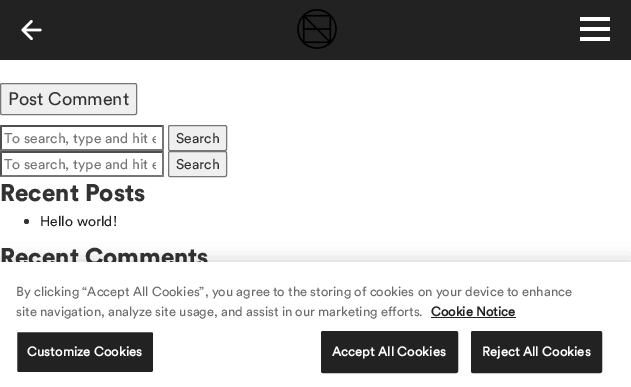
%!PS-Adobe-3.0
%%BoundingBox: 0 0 631 387
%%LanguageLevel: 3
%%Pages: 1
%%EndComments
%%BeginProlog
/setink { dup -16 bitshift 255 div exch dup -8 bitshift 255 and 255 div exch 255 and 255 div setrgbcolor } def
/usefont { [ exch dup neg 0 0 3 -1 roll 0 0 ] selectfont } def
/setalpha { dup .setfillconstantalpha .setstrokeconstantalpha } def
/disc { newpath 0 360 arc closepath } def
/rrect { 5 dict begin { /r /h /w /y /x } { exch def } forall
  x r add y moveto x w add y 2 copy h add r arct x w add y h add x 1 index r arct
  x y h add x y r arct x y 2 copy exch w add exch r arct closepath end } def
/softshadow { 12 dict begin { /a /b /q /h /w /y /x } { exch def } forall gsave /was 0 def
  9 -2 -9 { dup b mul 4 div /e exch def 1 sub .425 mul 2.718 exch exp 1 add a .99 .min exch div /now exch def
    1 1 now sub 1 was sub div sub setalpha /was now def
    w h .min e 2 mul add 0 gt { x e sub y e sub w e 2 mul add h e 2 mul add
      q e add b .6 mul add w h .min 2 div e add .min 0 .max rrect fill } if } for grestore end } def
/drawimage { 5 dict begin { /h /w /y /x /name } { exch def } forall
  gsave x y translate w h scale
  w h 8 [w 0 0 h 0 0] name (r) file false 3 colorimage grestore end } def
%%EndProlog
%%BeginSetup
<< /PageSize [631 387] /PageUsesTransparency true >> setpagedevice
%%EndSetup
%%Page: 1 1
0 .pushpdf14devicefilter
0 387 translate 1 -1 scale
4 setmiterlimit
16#FFFFFF setink
0 0 631 387 rectfill
16#222222 setink
0 0 631 60 rectfill
(img1.raw) 21 20 21 20 drawimage
(img2.raw) 297 9 40 40 drawimage
[
    [580 27 30 4 16#FFFFFF]
    [580 17 30 4 16#FFFFFF]
    [580 37 30 4 16#FFFFFF]
] { aload pop setink rectfill } forall
16#EFEFEF setink
0.5 83.5 136 31 1.5 rrect gsave fill grestore
16#767676 setink
stroke
/Circular-Regular 18 usefont
16#333333 setink
8 105 moveto (Post Comment) show
16#4F4F4F setink
0 125 moveto 164 125 lineto 162 127 lineto 2 127 lineto closepath fill
16#767676 setink
164 125 moveto 164 151 lineto 162 149 lineto 162 127 lineto closepath fill
164 151 moveto 0 151 lineto 2 149 lineto 162 149 lineto closepath fill
16#4F4F4F setink
0 151 moveto 0 125 lineto 2 127 lineto 2 149 lineto closepath fill
gsave
4 129 152 18 rectclip
/Circular-Regular 14 usefont
16#757575 setink
4 143 moveto (To search, type and hit e) show
grestore
16#EFEFEF setink
168.5 125.5 58 25 1.5 rrect gsave fill grestore
16#767676 setink
stroke
/Circular-Regular 14 usefont
16#333333 setink
176 143 moveto (Search) show
16#4F4F4F setink
0 151 moveto 164 151 lineto 162 153 lineto 2 153 lineto closepath fill
16#767676 setink
164 151 moveto 164 177 lineto 162 175 lineto 162 153 lineto closepath fill
164 177 moveto 0 177 lineto 2 175 lineto 162 175 lineto closepath fill
16#4F4F4F setink
0 177 moveto 0 151 lineto 2 153 lineto 2 175 lineto closepath fill
gsave
4 155 152 18 rectclip
16#757575 setink
4 169 moveto (To search, type and hit e) show
grestore
16#EFEFEF setink
168.5 151.5 58 25 1.5 rrect gsave fill grestore
16#767676 setink
stroke
16#333333 setink
176 169 moveto (Search) show
/Circular-Black 24 usefont
0 201 moveto (Recent Posts) show
26.5 221.5 2.5 disc fill
/Circular-Regular 14 usefont
16#222222 setink
40 226 moveto (Hello world!) show
/Circular-Black 24 usefont
16#333333 setink
0 265 moveto (Recent Comments) show
16#000000 setink
0 262 631 125 0 9 0.2 softshadow
16#FFFFFF setink
0 262 631 125 rectfill
/Circular-Regular 13 usefont
16#696969 setink
16 296 moveto (By clicking “Accept All Cookies”, you agree to the storing of cookies on your device to enhance) show
16 316 moveto (site navigation, analyze site usage, and assist in our marketing efforts.) show
/Circular-Bold 13 usefont
16#222222 setink
431 316 moveto (Cookie Notice) show
431 317 85 1 rectfill
16.5 331.5 137 41 1.5 rrect gsave fill grestore
16#FFFFFF setink
stroke
27 356 moveto 0.1 0 (Customize Cookies) ashow
16#222222 setink
321.5 331.5 136 41 1.5 rrect gsave fill grestore
stroke
16#FFFFFF setink
332 356 moveto 0.1 0 (Accept All Cookies) ashow
16#222222 setink
471.5 331.5 130 41 1.5 rrect gsave fill grestore
stroke
16#FFFFFF setink
482 356 moveto 0.1 0 (Reject All Cookies) ashow
.poppdf14devicefilter showpage
%%EOF
